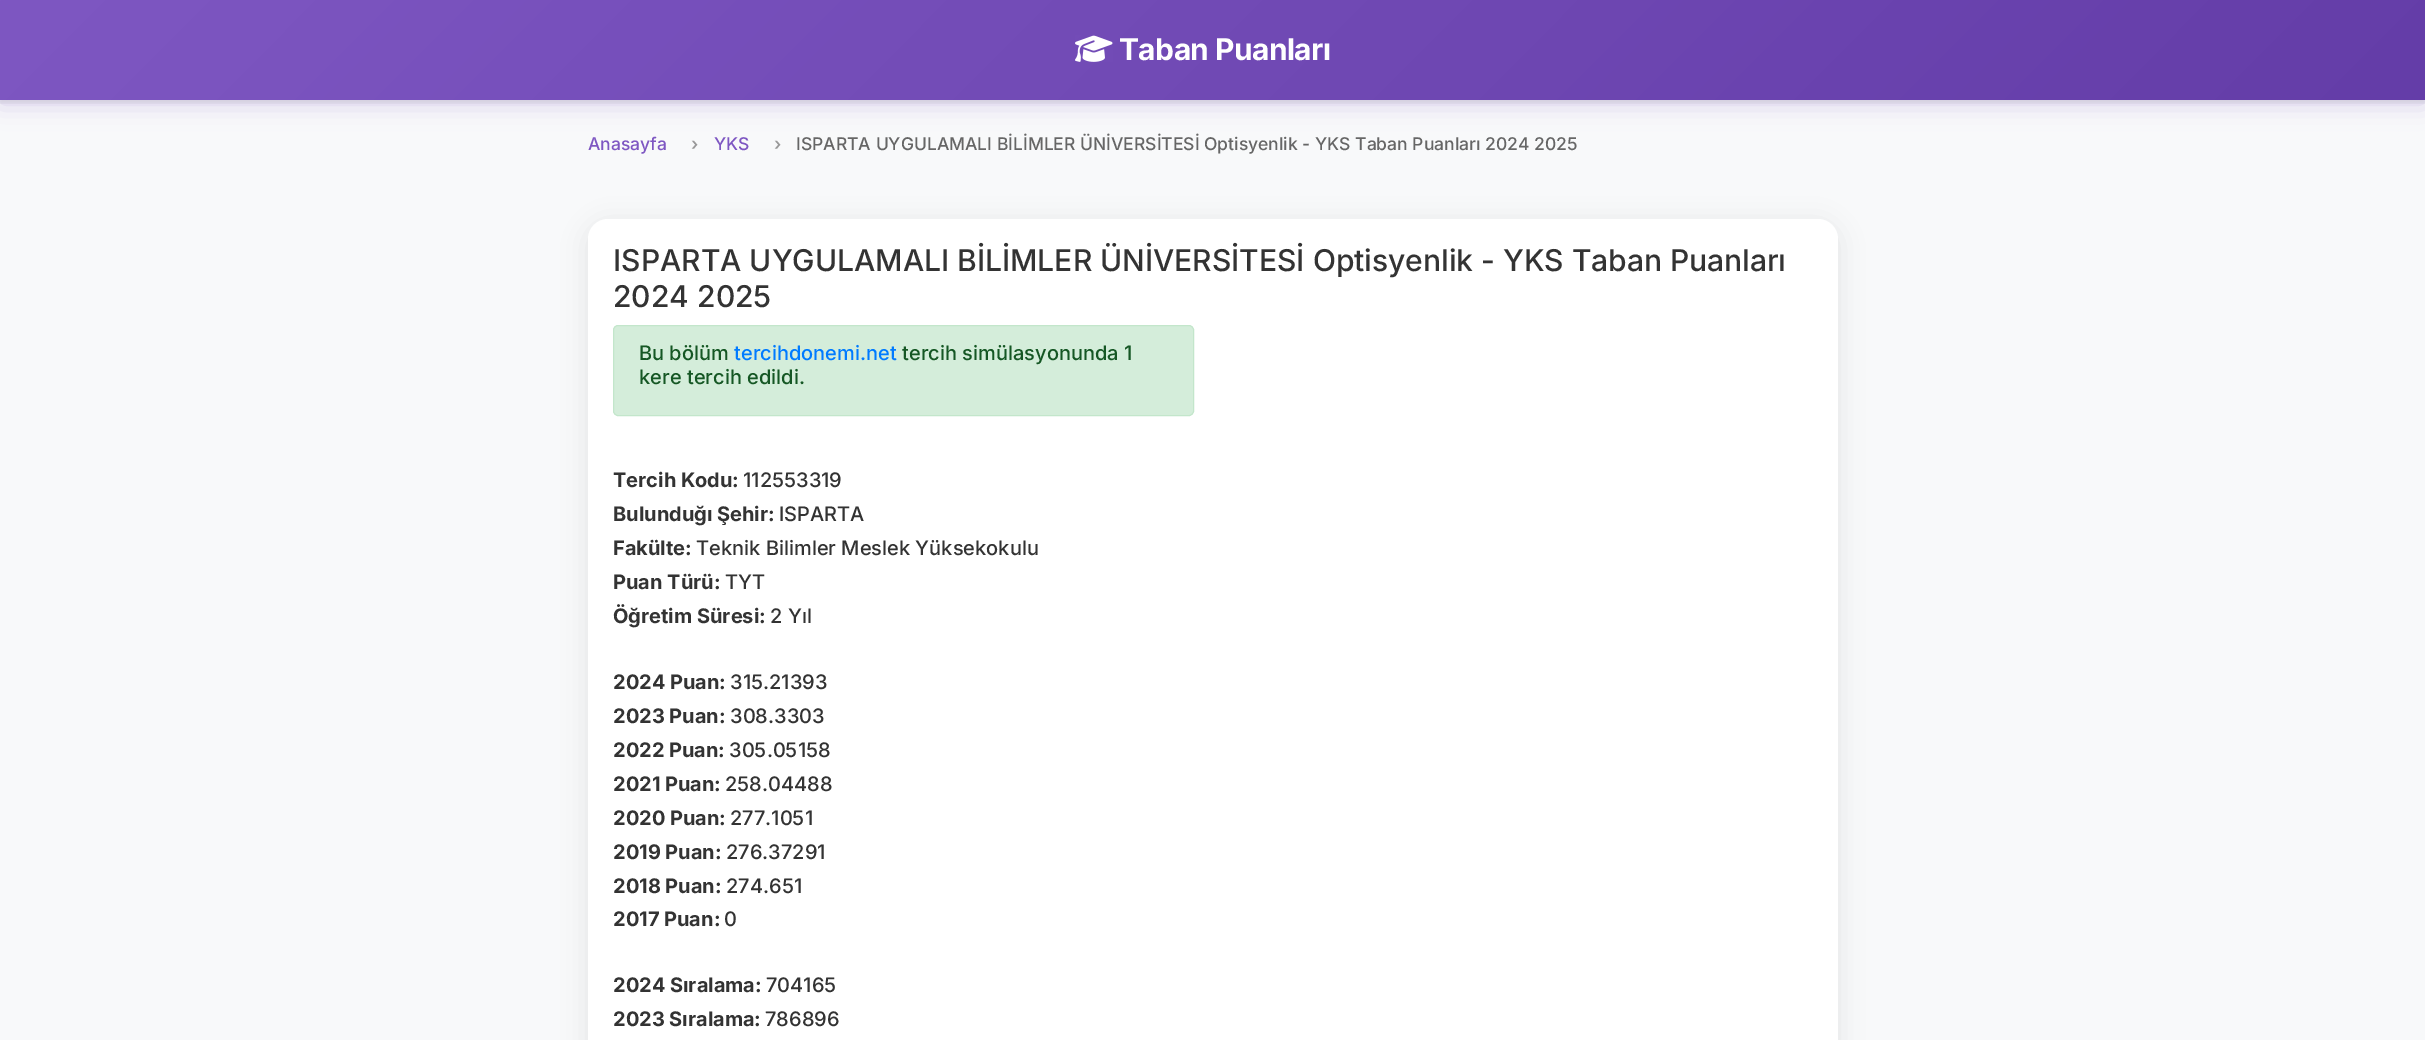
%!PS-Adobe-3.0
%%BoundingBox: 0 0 2425 1040
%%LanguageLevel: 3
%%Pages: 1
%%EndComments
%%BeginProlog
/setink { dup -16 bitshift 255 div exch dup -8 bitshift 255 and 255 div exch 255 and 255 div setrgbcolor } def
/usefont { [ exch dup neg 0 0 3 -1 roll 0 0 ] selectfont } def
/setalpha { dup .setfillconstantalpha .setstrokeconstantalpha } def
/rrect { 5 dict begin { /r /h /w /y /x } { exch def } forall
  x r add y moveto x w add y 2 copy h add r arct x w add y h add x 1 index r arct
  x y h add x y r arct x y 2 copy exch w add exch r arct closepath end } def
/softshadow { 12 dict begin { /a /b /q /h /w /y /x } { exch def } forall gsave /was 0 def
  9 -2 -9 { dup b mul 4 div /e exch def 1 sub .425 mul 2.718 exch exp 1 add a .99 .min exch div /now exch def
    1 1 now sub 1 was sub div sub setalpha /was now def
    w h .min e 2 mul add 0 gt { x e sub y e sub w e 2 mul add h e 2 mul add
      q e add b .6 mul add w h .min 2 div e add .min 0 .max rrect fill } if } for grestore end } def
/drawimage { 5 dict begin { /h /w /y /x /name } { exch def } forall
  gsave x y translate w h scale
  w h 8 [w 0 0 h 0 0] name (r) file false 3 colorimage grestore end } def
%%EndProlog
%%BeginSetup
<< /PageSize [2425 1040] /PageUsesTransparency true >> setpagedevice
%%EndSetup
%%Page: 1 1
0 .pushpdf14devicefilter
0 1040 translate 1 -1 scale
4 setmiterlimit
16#F8F9FA setink
0 0 2425 1040 rectfill
16#7E57C2 setink
0 3 2425 100 0 12.5 0.3 softshadow
gsave 0 0 moveto 2425 0 lineto 2425 100 lineto 0 100 lineto closepath clip newpath
<< /ShadingType 2 /ColorSpace /DeviceRGB /Coords [581 -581 1844 681] /Extend [true true] /Function << /FunctionType 2 /Domain [0 1] /C0 [0.494 0.341 0.761] /C1 [0.392 0.239 0.659] /N 1 >> >> shfill grestore
gsave
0 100 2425 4 rectclip
16#000000 setink
0 3 2425 100 0 2.5 0.07 softshadow
grestore
(img1.raw) 1075 35 38 27 drawimage
/Inter-Bold 30 usefont
16#FFFFFF setink
1119 60 moveto -0.6 0 (Taban Puanları) ashow
/Inter-Medium 17.5 usefont
16#7E57C2 setink
588 150 moveto (Anasayfa) show
/Inter-SemiBold 17.5 usefont
16#999999 setink
691 150 moveto (›) show
/Inter-Medium 17.5 usefont
16#7E57C2 setink
714 150 moveto (YKS) show
/Inter-SemiBold 17.5 usefont
16#999999 setink
774 150 moveto (›) show
/Inter-Medium 17.5 usefont
16#666666 setink
796 150 moveto (ISPARTA UYGULAMALI BİLİMLER ÜNİVERSİTESİ Optisyenlik - YKS Taban Puanları 2024 2025) show
16#000000 setink
588 224 1250 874 20 12.5 0.08 softshadow
16#FFFFFF setink
588 219 1250 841 20 rrect fill
/Inter-Medium 30 usefont
16#333333 setink
613 271 moveto (ISPARTA UYGULAMALI BİLİMLER ÜNİVERSİTESİ Optisyenlik - YKS Taban Puanları) show
613 307 moveto (2024 2025) show
16#D4EDDA setink
613.5 325.5 580 90 4.5 rrect gsave fill grestore
16#C3E6CB setink
stroke
/Inter-Medium 20 usefont
16#155724 setink
639 360 moveto (Bu bölüm) show
16#007BFF setink
734 360 moveto (tercihdonemi.net) show
16#155724 setink
902 360 moveto (tercih simülasyonunda 1) show
639 384 moveto (kere tercih edildi.) show
/Inter-Bold 20 usefont
16#333333 setink
613 487 moveto (Tercih Kodu:) show
/Inter-Medium 20 usefont
743 487 moveto (112553319) show
/Inter-Bold 20 usefont
613 521 moveto (Bulunduğı Şehir:) show
/Inter-Medium 20 usefont
779 521 moveto (ISPARTA) show
/Inter-Bold 20 usefont
613 555 moveto (Fakülte:) show
/Inter-Medium 20 usefont
696 555 moveto (Teknik Bilimler Meslek Yüksekokulu) show
/Inter-Bold 20 usefont
613 589 moveto (Puan Türü:) show
/Inter-Medium 20 usefont
725 589 moveto (TYT) show
/Inter-Bold 20 usefont
613 623 moveto (Öğretim Süresi:) show
/Inter-Medium 20 usefont
770 623 moveto (2 Yıl) show
/Inter-Bold 20 usefont
613 689 moveto (2024 Puan:) show
/Inter-Medium 20 usefont
730 689 moveto (315.21393) show
/Inter-Bold 20 usefont
613 723 moveto (2023 Puan:) show
/Inter-Medium 20 usefont
730 723 moveto (308.3303) show
/Inter-Bold 20 usefont
613 757 moveto (2022 Puan:) show
/Inter-Medium 20 usefont
729 757 moveto (305.05158) show
/Inter-Bold 20 usefont
613 791 moveto (2021 Puan:) show
/Inter-Medium 20 usefont
725 791 moveto (258.04488) show
/Inter-Bold 20 usefont
613 825 moveto (2020 Puan:) show
/Inter-Medium 20 usefont
730 825 moveto (277.1051) show
/Inter-Bold 20 usefont
613 859 moveto (2019 Puan:) show
/Inter-Medium 20 usefont
726 859 moveto (276.37291) show
/Inter-Bold 20 usefont
613 893 moveto (2018 Puan:) show
/Inter-Medium 20 usefont
726 893 moveto (274.651) show
/Inter-Bold 20 usefont
613 926 moveto (2017 Puan:) show
/Inter-Medium 20 usefont
724 926 moveto (0) show
/Inter-Bold 20 usefont
613 992 moveto (2024 Sıralama:) show
/Inter-Medium 20 usefont
766 992 moveto (704165) show
/Inter-Bold 20 usefont
613 1026 moveto (2023 Sıralama:) show
/Inter-Medium 20 usefont
765 1026 moveto (786896) show
.poppdf14devicefilter showpage
%%EOF
